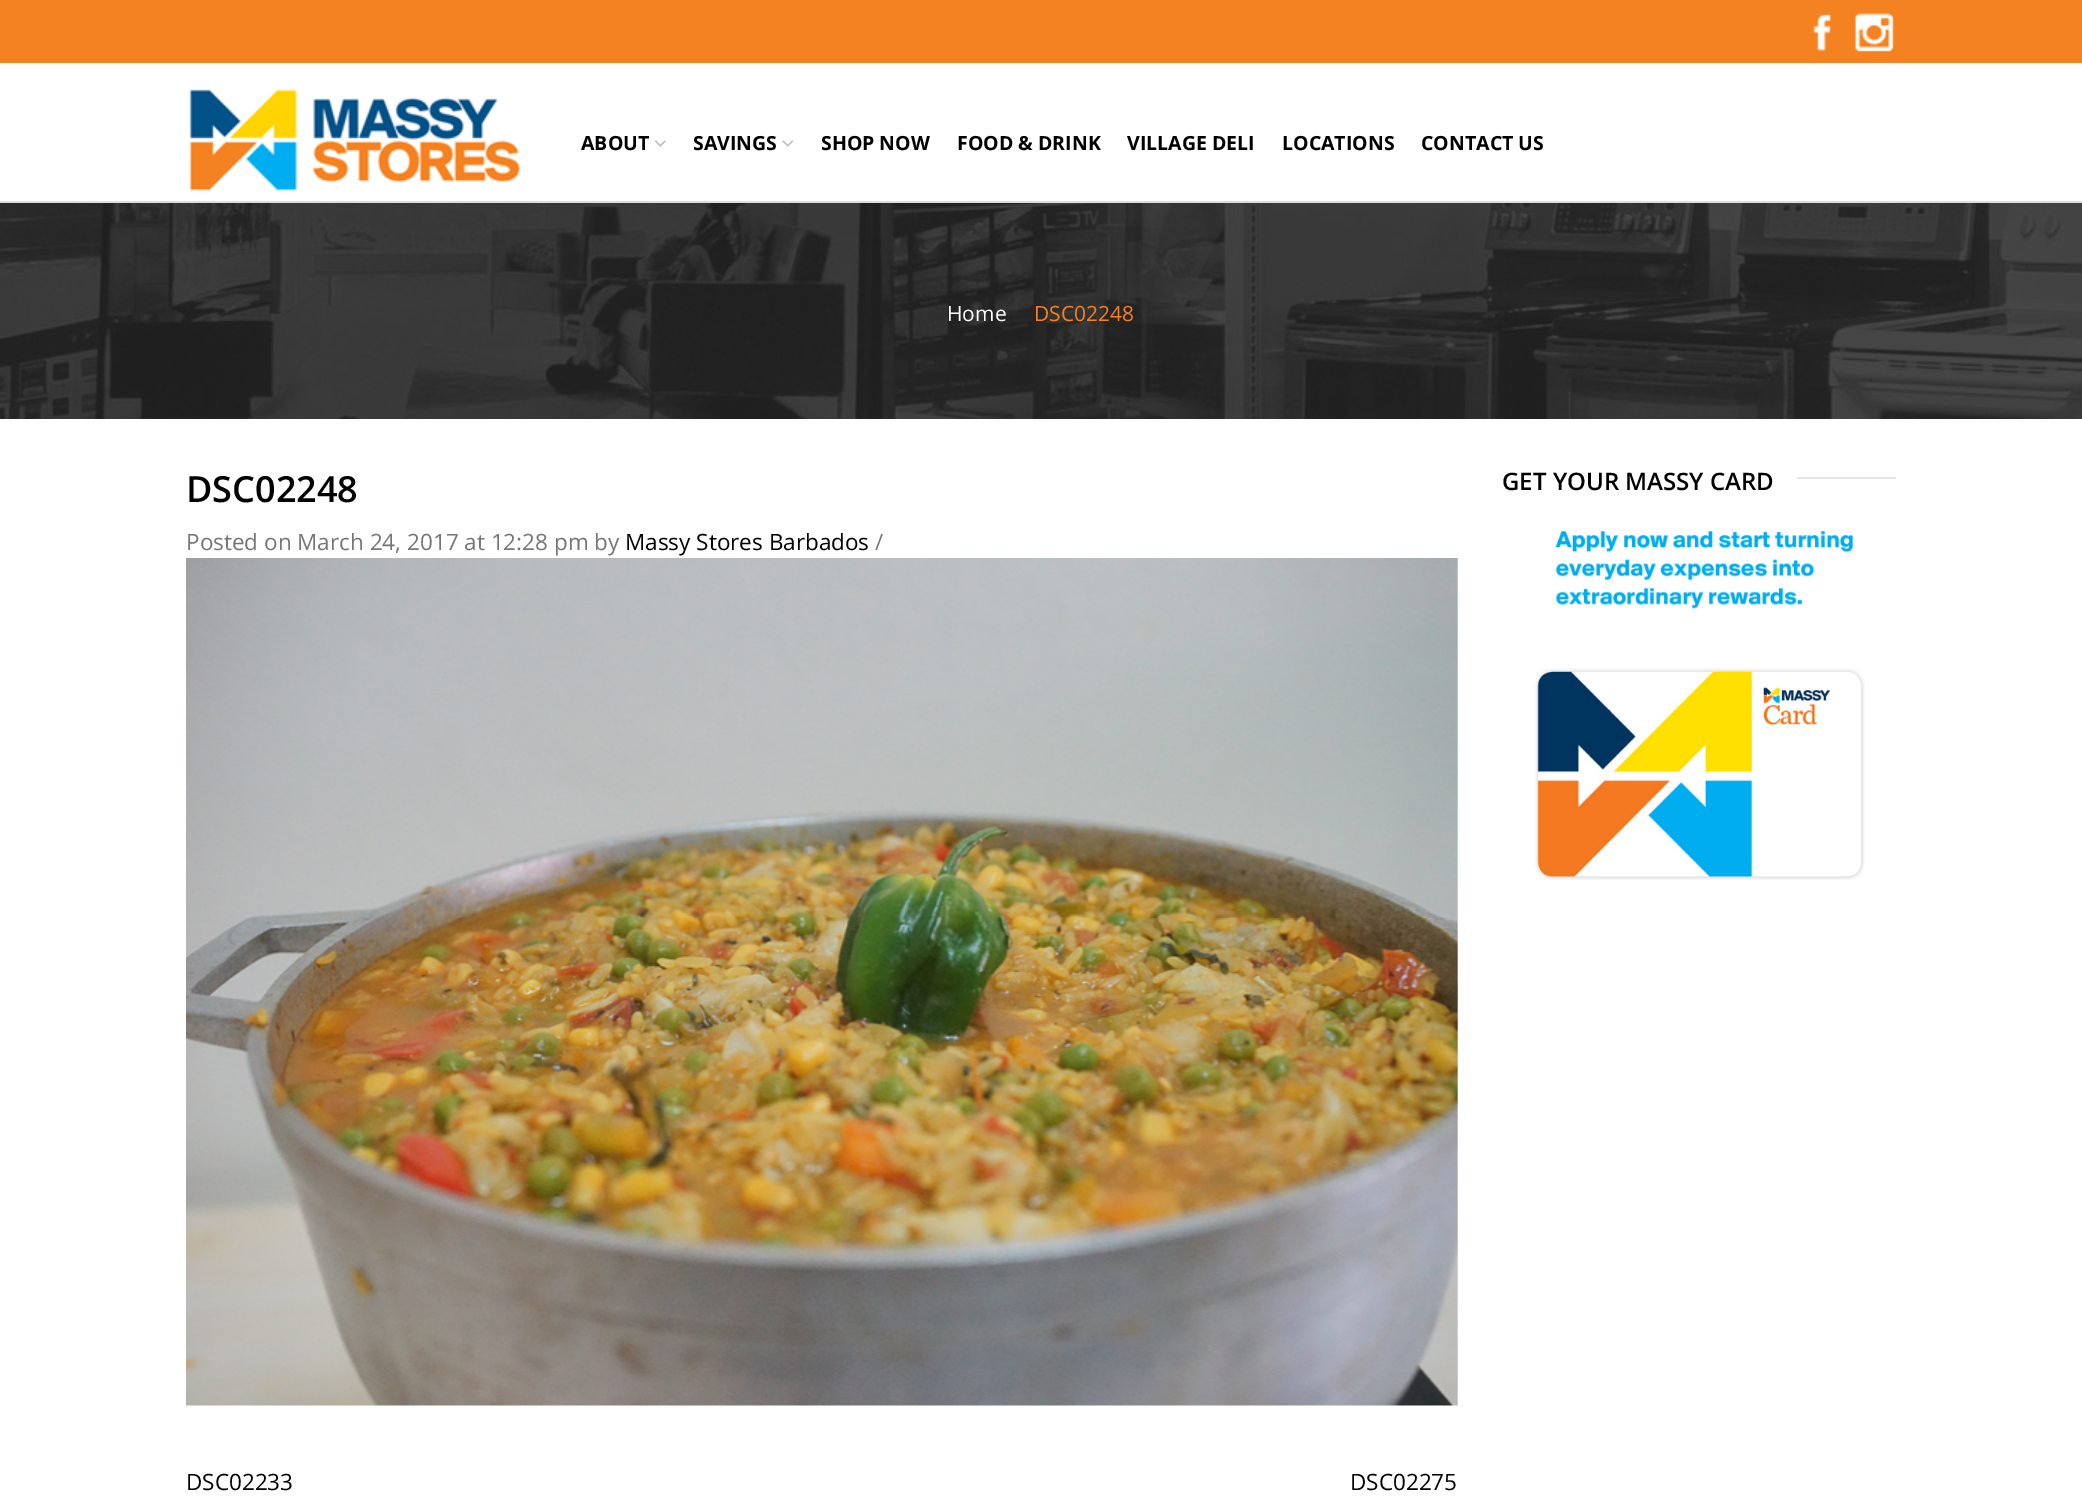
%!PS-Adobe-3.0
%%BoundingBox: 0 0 2082 1501
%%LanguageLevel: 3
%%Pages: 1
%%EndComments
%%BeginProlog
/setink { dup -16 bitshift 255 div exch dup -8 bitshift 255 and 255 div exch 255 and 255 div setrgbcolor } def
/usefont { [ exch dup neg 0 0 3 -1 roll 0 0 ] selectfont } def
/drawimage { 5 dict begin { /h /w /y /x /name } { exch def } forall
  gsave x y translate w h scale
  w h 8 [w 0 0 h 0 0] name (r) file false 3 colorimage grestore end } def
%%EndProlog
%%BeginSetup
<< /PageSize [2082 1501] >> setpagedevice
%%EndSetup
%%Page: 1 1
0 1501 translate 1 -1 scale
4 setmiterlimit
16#FFFFFF setink
0 0 2082 1501 rectfill
16#F58220 setink
0 0 2082 63 rectfill
(img1.raw) 1813 14 19 38 drawimage
(img2.raw) 1855 13 39 39 drawimage
(img3.raw) 189 89 332 102 drawimage
/OpenSans-Bold 19.5 usefont
16#000000 setink
581 150 moveto (ABOUT) show
(img4.raw) 654 140 12 7 drawimage
693 150 moveto (SAVINGS) show
(img5.raw) 782 140 12 7 drawimage
[
    [(SHOP NOW) 821 150]
    [(FOOD & DRINK) 957 150]
    [(VILLAGE DELI) 1127 150]
    [(LOCATIONS) 1282 150]
    [(CONTACT US) 1421 150]
] { aload pop moveto show } forall
(img6.raw) 0 203 2082 216 drawimage
16#DDDDDD setink
0 201 2082 2 rectfill
/OpenSans-Regular 21 usefont
16#FFFFFF setink
947 321 moveto (Home) show
16#F58220 setink
1034 321 moveto (DSC02248) show
/OpenSans-SemiBold 36 usefont
16#000000 setink
186 502 moveto (DSC02248) show
/OpenSans-Regular 22.5 usefont
16#767676 setink
186 550 moveto (Posted on March 24, 2017 at 12:28 pm by) show
16#000000 setink
625 550 moveto (Massy Stores Barbados) show
16#767676 setink
875 550 moveto (/) show
(img7.raw) 186 558 1272 848 drawimage
16#000000 setink
186 1490 moveto (DSC02233) show
1350 1490 moveto (DSC02275) show
/OpenSans-SemiBold 24 usefont
1502 490 moveto (GET YOUR MASSY CARD) show
16#E5E5E5 setink
1797 477 99 2 rectfill
(img8.raw) 1534 531 331 349 drawimage
showpage
%%EOF
